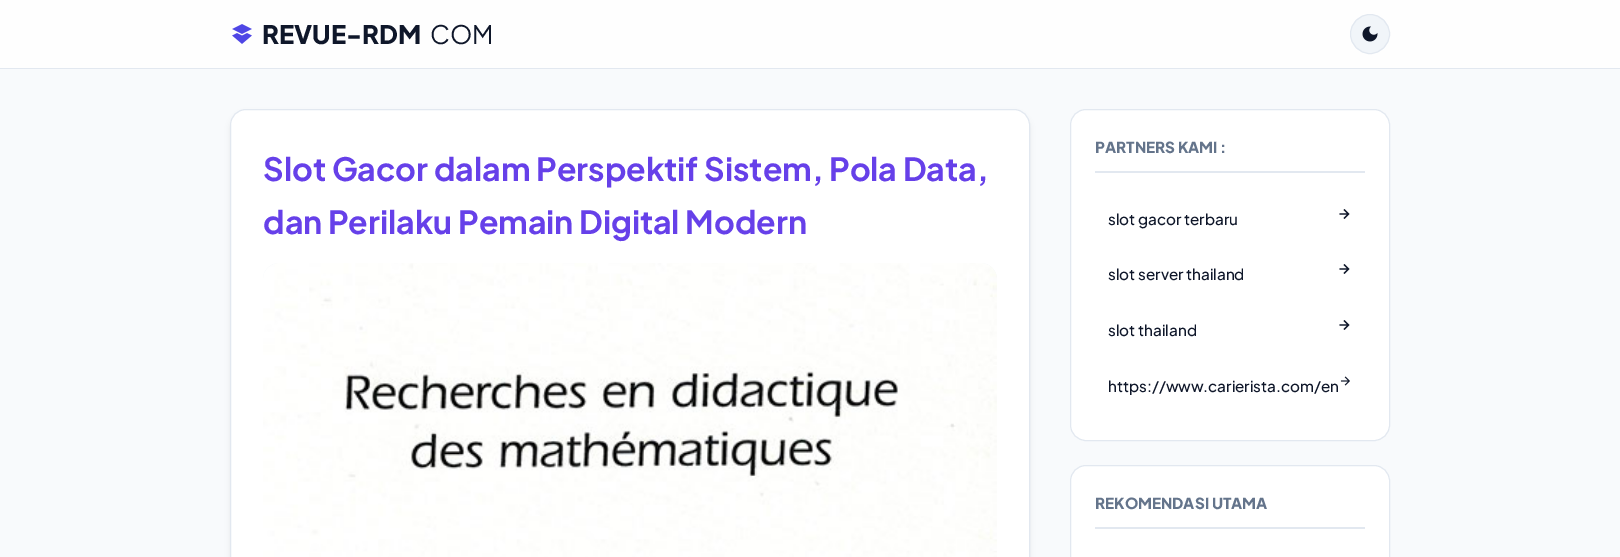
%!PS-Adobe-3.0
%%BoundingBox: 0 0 1620 557
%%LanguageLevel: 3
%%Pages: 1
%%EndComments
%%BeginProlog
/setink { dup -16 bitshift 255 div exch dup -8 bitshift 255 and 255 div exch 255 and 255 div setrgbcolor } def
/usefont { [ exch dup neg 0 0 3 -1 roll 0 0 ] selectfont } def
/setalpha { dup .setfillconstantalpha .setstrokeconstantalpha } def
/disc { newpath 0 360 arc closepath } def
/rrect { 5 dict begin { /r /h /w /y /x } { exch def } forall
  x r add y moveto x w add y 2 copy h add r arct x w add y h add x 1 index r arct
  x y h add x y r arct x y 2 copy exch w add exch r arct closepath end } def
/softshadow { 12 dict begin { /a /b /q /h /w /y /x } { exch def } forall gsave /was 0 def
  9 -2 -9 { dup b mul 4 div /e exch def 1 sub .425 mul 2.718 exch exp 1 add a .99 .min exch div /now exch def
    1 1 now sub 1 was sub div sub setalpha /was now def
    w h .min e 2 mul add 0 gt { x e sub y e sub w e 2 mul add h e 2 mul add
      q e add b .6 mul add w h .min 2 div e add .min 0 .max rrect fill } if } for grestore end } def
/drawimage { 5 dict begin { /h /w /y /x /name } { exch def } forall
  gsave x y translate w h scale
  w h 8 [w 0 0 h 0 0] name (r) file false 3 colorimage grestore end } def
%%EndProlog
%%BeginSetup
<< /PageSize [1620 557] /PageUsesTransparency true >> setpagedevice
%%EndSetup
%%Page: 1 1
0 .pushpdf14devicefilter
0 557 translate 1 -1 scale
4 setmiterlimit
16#F8FAFC setink
0 0 1620 557 rectfill
16#FEFEFE setink
0 0 1620 68 rectfill
16#E2E8F0 setink
0 68 1620 1 rectfill
(img1.raw) 232 24 20 20 drawimage
/PlusJakartaSans-ExtraBold 25.5 usefont
16#0F172A setink
262 44 moveto (REVUE-RDM) show
/PlusJakartaSans-Regular 25.5 usefont
430 44 moveto (COM) show
16#F1F5F9 setink
1370 34 19.5 disc gsave fill grestore
16#E2E8F0 setink
stroke
(img2.raw) 1362 26 16 16 drawimage
16#000000 setink
231 114 798 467 15 3 0.1 softshadow
16#FFFFFF setink
230.5 109.5 799 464 15.5 rrect gsave fill grestore
16#E2E8F0 setink
stroke
/PlusJakartaSans-Bold 32 usefont
16#6640E9 setink
263 181 moveto (Slot Gacor dalam Perspektif Sistem, Pola Data,) show
263 234 moveto (dan Perilaku Pemain Digital Modern) show
16#F1F5F9 setink
263 263 734 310 16 rrect fill
(img3.raw) 263 263 734 294 drawimage
16#FFFFFF setink
1070.5 109.5 319 331 15.5 rrect gsave fill grestore
16#E2E8F0 setink
stroke
1095 171 270 2 rectfill
/PlusJakartaSans-ExtraBold 15.25 usefont
16#64748B setink
1095 153 moveto (PARTNERS KAMI :) show
/PlusJakartaSans-Medium 15.25 usefont
16#0F172A setink
1108 225 moveto (slot gacor terbaru) show
1.3 setlinewidth
1339.5 214 moveto 1348.5 214 lineto 1344 209.5 moveto 1348.5 214 lineto 1344 218.5 lineto stroke
1108 280 moveto (slot server thailand) show
1339.5 269 moveto 1348.5 269 lineto 1344 264.5 moveto 1348.5 269 lineto 1344 273.5 lineto stroke
1108 336 moveto (slot thailand) show
1339.5 325 moveto 1348.5 325 lineto 1344 320.5 moveto 1348.5 325 lineto 1344 329.5 lineto stroke
1108 392 moveto (https://www.carierista.com/en) show
(img4.raw) 1340 376 10 10 drawimage
16#FFFFFF setink
1070.5 465.5 319 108 15.5 rrect gsave fill grestore
16#E2E8F0 setink
1 setlinewidth
stroke
1095 527 270 2 rectfill
/PlusJakartaSans-ExtraBold 15.25 usefont
16#64748B setink
1095 509 moveto (REKOMENDASI UTAMA) show
.poppdf14devicefilter showpage
%%EOF
